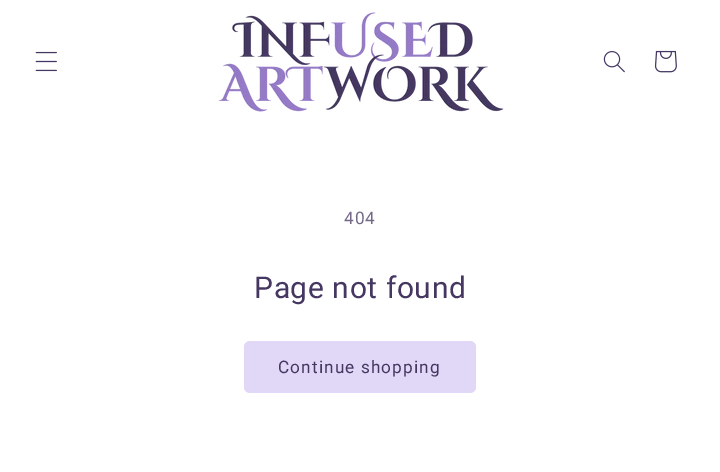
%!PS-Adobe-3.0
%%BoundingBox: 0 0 720 472
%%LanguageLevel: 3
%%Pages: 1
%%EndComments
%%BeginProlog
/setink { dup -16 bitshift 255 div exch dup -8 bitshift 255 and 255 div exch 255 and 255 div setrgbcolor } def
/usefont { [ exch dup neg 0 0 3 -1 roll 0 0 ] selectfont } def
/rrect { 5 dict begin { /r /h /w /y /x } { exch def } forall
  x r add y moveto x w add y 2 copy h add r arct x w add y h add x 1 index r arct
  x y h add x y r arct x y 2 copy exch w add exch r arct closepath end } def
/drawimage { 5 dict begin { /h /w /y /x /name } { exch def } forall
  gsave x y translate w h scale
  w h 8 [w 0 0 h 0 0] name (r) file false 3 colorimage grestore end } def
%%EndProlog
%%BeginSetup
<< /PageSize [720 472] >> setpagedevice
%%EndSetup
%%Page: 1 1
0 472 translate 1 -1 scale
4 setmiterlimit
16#FFFFFF setink
0 0 720 472 rectfill
(img1.raw) 35 51 22 21 drawimage
(img2.raw) 218 12 286 100 drawimage
(img3.raw) 603 51 22 22 drawimage
(img4.raw) 654 50 23 23 drawimage
/Roboto-Regular 17.25 usefont
16#746989 setink
344 224 moveto 1 0 (404) ashow
/Roboto-Regular 30 usefont
16#453761 setink
254 298 moveto 0.6 0 (Page not found) ashow
16#E1D8F7 setink
244 341 232 52 6 rrect fill
/Roboto-Regular 17.25 usefont
16#453761 setink
278 373 moveto 1.1 0 (Continue shopping) ashow
showpage
%%EOF
